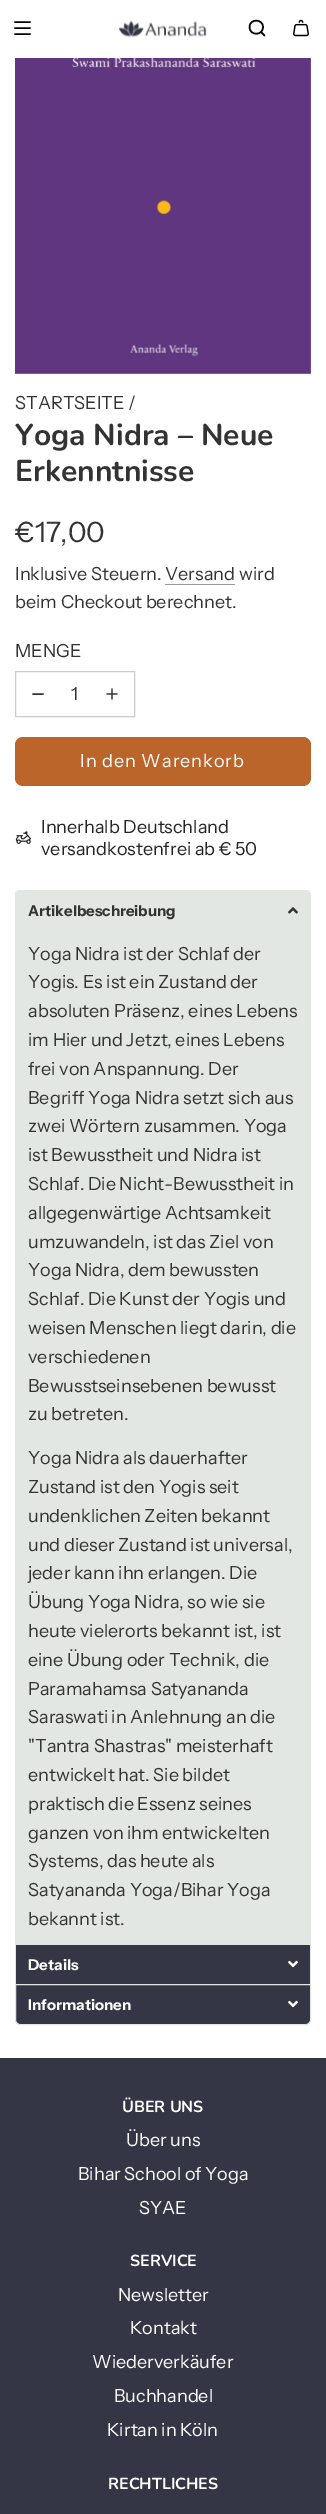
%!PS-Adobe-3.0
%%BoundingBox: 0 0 326 2514
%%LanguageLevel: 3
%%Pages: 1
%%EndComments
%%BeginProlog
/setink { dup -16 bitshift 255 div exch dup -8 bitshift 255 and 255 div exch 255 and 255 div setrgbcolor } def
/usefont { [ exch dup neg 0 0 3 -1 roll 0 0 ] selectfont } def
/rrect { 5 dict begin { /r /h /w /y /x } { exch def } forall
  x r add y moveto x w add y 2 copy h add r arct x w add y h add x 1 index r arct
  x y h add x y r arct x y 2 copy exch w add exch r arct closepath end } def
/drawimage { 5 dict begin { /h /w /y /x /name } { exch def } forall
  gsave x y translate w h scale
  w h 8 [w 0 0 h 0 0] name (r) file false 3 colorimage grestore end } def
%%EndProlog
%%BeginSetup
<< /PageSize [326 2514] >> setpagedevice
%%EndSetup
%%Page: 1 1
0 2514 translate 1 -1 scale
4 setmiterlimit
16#FFFFFF setink
0 0 326 2514 rectfill
16#050000 setink
1.5 setlinewidth
1 setlinecap
1 setlinejoin
15 22 moveto 30 22 lineto 15 28 moveto 30 28 lineto 15 34 moveto 30 34 lineto stroke
(img1.raw) 119 20 88 18 drawimage
261 32 moveto 264.5 35.5 lineto 249.5 27 moveto 249.5 36 263 36 263 27 curveto 263 18.5 249.5 18.5 249.5 27 curveto closepath stroke
(img2.raw) 293 19 16 18 drawimage
(img3.raw) 15 58 296 316 drawimage
/InstrumentSans-Regular 18 usefont
16#333333 setink
15 409 moveto (STARTSEITE /) show
/Nunito-Bold 30 usefont
15 445 moveto (Yoga Nidra – Neue) show
15 481 moveto (Erkenntnisse) show
/InstrumentSans-Regular 28 usefont
15 542 moveto (€17,00) show
/InstrumentSans-Regular 18 usefont
15 580 moveto (Inklusive Steuern. Versand) show
239 580 moveto (wird) show
16#999999 setink
165 584 70 1 rectfill
16#333333 setink
15 608 moveto (beim Checkout berechnet.) show
15 657 moveto (MENGE) show
16#CCCCCC setink
1 setlinewidth
0 setlinecap
0 setlinejoin
15.5 671.5 119 45 rectstroke
16#333333 setink
1.5 setlinewidth
1 setlinecap
1 setlinejoin
33 694 moveto 43 694 lineto stroke
71 700 moveto (1) show
(img4.raw) 106 688 12 12 drawimage
16#BB652B setink
15 737 296 49 8 rrect fill
16#FFFFFF setink
80 767 moveto 1 0 (In den Warenkorb) ashow
(img5.raw) 15 831 16 13 drawimage
16#242424 setink
41 833 moveto (Innerhalb Deutschland) show
41 855 moveto (versandkostenfrei ab € 50) show
16#E3E7E4 setink
20 891 moveto 306 891 lineto 308 891 310 893 310 895 curveto 310 930 lineto 16 930 lineto 16 895 lineto 16 893 18 891 20 891 curveto closepath fill
310 929 1 1015 rectfill
15 929 1 1015 rectfill
20 890 moveto 306 890 lineto 309 890 311 892 311 895 curveto 311 930 lineto 15 930 lineto 15 895 lineto 15 892 17 890 20 890 curveto closepath 20 891 moveto 306 891 lineto 308 891 310 893 310 895 curveto 310 930 lineto 16 930 lineto 16 895 lineto 16 893 18 891 20 891 curveto closepath eofill
/InstrumentSans-Bold 15 usefont
16#333333 setink
28 916 moveto (Artikelbeschreibung) show
(img6.raw) 288 907 10 7 drawimage
16#E3E7E4 setink
16 930 294 1014 rectfill
/InstrumentSans-Regular 18 usefont
16#333333 setink
[
    [(Yoga Nidra ist der Schlaf der) 28 960]
    [(Yogis. Es ist ein Zustand der) 28 988]
    [(absoluten Präsenz, eines Lebens) 28 1017]
    [(im Hier und Jetzt, eines Lebens) 28 1046]
    [(frei von Anspannung. Der) 28 1075]
    [(Begriff Yoga Nidra setzt sich aus) 28 1104]
    [(zwei Wörtern zusammen. Yoga) 28 1132]
    [(ist Bewusstheit und Nidra ist) 28 1161]
    [(Schlaf. Die Nicht-Bewusstheit in) 28 1190]
    [(allgegenwärtige Achtsamkeit) 28 1219]
    [(umzuwandeln, ist das Ziel von) 28 1248]
    [(Yoga Nidra, dem bewussten) 28 1276]
    [(Schlaf. Die Kunst der Yogis und) 28 1305]
    [(weisen Menschen liegt darin, die) 28 1334]
    [(verschiedenen) 28 1363]
    [(Bewusstseinsebenen bewusst) 28 1392]
    [(zu betreten.) 28 1420]
    [(Yoga Nidra als dauerhafter) 28 1464]
    [(Zustand ist den Yogis seit) 28 1493]
    [(undenklichen Zeiten bekannt) 28 1522]
    [(und dieser Zustand ist universal,) 28 1551]
    [(jeder kann ihn erlangen. Die) 28 1579]
    [(Übung Yoga Nidra, so wie sie) 28 1608]
    [(heute vielerorts bekannt ist, ist) 28 1637]
    [(eine Übung oder Technik, die) 28 1666]
    [(Paramahamsa Satyananda) 28 1695]
    [(Saraswati in Anlehnung an die) 28 1723]
    [("Tantra Shastras" meisterhaft) 28 1752]
    [(entwickelt hat. Sie bildet) 28 1781]
    [(praktisch die Essenz seines) 28 1810]
    [(ganzen von ihm entwickelten) 28 1839]
    [(Systems, das heute als) 28 1867]
    [(Satyananda Yoga/Bihar Yoga) 28 1896]
    [(bekannt ist.) 28 1925]
] { aload pop moveto show } forall
[
    [16 1945 294 39 16#343645]
    [15 1944 296 1 16#E3E7E4]
    [310 1944 1 40 16#E3E7E4]
    [15 1944 1 40 16#E3E7E4]
] { aload pop setink rectfill } forall
/InstrumentSans-Bold 15 usefont
16#FFFFFF setink
28 1970 moveto (Details) show
(img7.raw) 288 1960 10 8 drawimage
16#343645 setink
15.5 1984.5 moveto 310.5 1984.5 lineto 310.5 2020 lineto 310.5 2022.5 308.5 2024.5 306 2024.5 curveto 20 2024.5 lineto 17.5 2024.5 15.5 2022.5 15.5 2020 curveto closepath gsave fill grestore
16#E3E7E4 setink
1 setlinewidth
0 setlinecap
0 setlinejoin
stroke
16#FFFFFF setink
28 2010 moveto (Informationen) show
(img7.raw) 288 2000 10 8 drawimage
16#343645 setink
0 2058 326 456 rectfill
/Nunito-Bold 16 usefont
16#FFFFFF setink
122 2112 moveto (ÜBER UNS) show
/InstrumentSans-Regular 18 usefont
[
    [(Über uns) 126 2146]
    [(Bihar School of Yoga) 78 2180]
    [(SYAE) 139 2214]
] { aload pop moveto show } forall
/Nunito-Bold 16 usefont
130 2266 moveto (SERVICE) show
/InstrumentSans-Regular 18 usefont
[
    [(Newsletter) 118 2301]
    [(Kontakt) 130 2334]
    [(Wiederverkäufer) 92 2368]
    [(Buchhandel) 114 2402]
    [(Kirtan in Köln) 107 2436]
] { aload pop moveto show } forall
/Nunito-Bold 16 usefont
108 2489 moveto (RECHTLICHES) show
showpage
%%EOF
